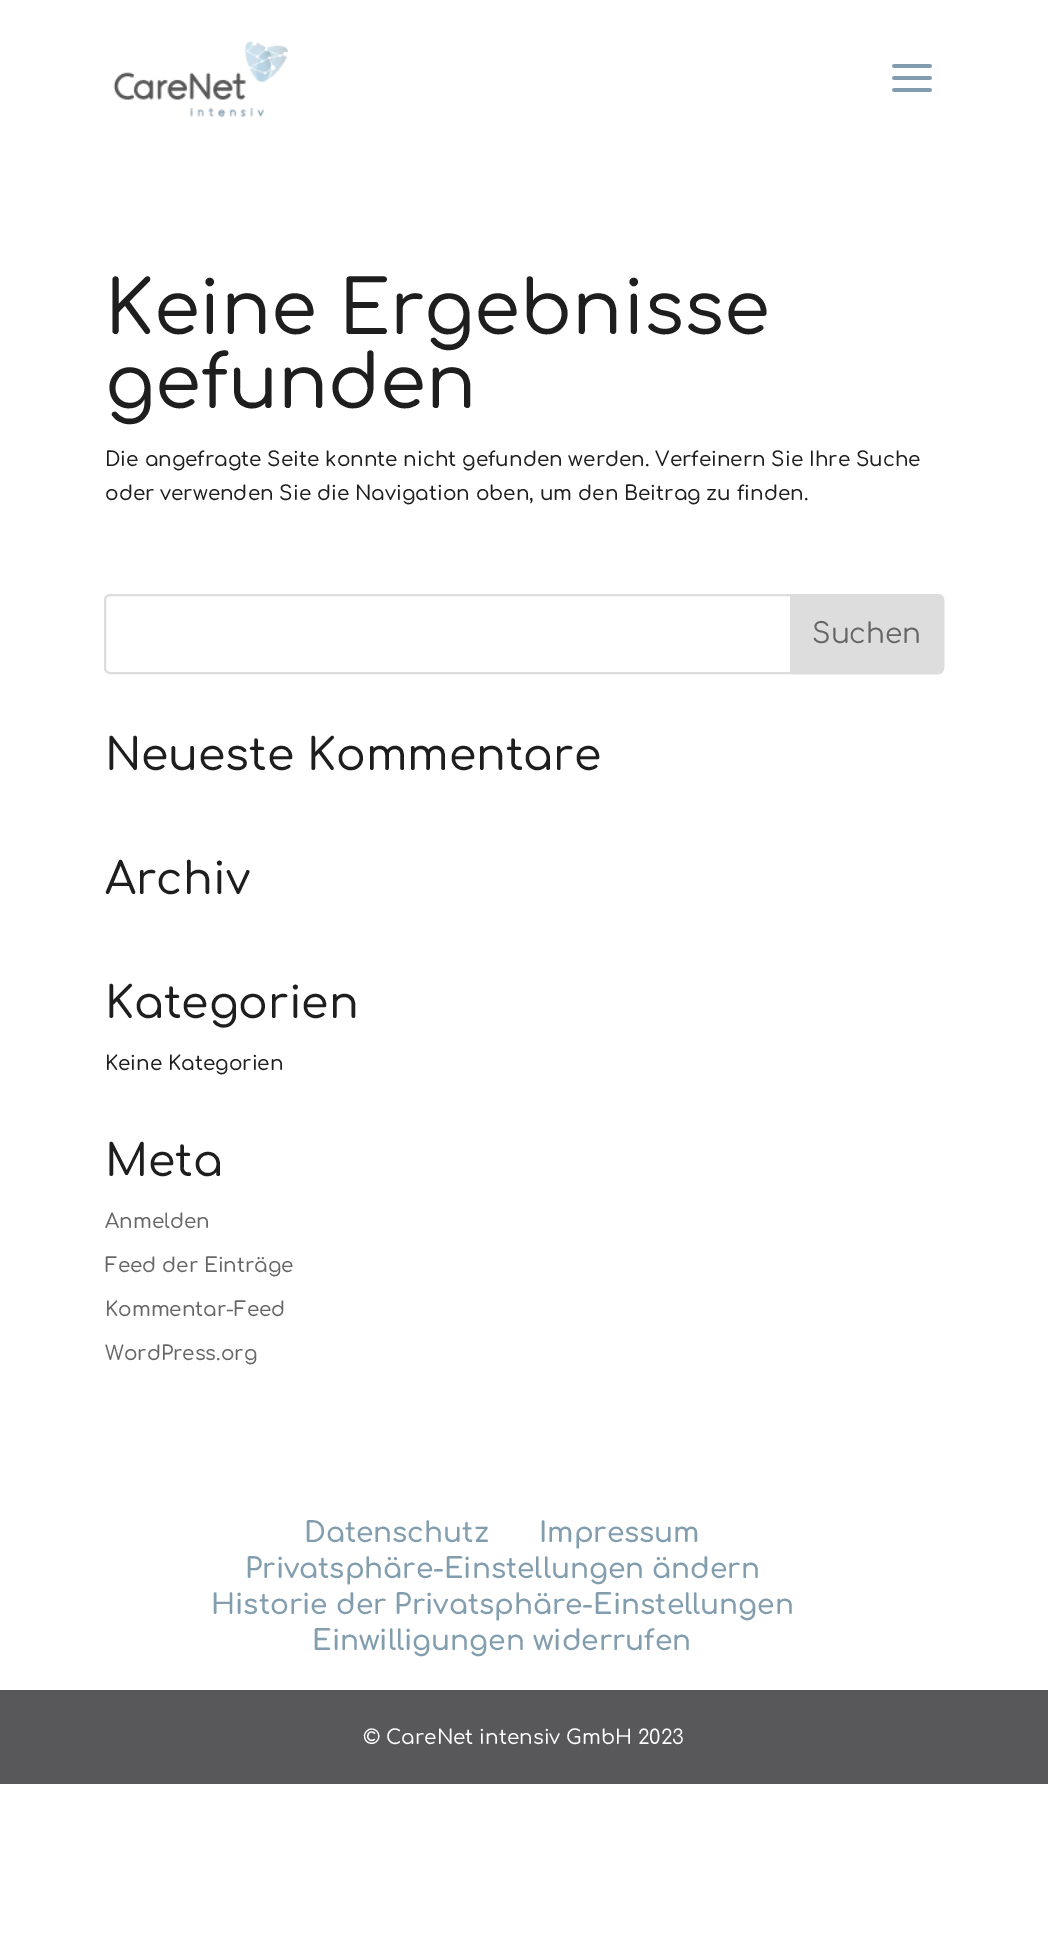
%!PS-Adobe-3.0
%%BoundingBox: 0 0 1048 1948
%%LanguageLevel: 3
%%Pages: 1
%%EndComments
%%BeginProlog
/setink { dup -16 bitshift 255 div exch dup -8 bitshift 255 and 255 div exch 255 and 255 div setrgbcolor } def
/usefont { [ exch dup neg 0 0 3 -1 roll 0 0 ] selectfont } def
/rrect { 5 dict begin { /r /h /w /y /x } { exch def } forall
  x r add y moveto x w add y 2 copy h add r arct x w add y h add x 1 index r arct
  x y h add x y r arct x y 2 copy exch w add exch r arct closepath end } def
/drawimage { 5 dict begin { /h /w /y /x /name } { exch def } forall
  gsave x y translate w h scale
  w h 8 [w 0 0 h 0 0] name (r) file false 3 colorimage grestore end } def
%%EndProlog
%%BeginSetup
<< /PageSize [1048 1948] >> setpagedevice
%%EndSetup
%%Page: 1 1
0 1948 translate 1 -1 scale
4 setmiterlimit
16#FFFFFF setink
0 0 1048 1948 rectfill
(img1.raw) 113 41 175 76 drawimage
(img2.raw) 892 64 40 28 drawimage
/Comfortaa-Medium 74 usefont
16#1E1E1E setink
105 334 moveto (Keine Ergebnisse) show
105 408 moveto (gefunden) show
/Comfortaa-Medium 20 usefont
105 466 moveto (Die angefragte Seite konnte nicht gefunden werden. Verfeinern Sie Ihre Suche) show
105 500 moveto (oder verwenden Sie die Navigation oben, um den Beitrag zu finden.) show
16#DDDDDD setink
2 setlinewidth
105 595 838 78 5 rrect stroke
791 595 moveto 938 595 lineto 941 595 943 597 943 600 curveto 943 668 lineto 943 671 941 673 938 673 curveto 791 673 lineto closepath gsave fill grestore
stroke
/Comfortaa-Regular 28 usefont
16#666666 setink
812 643 moveto (Suchen) show
/Comfortaa-Medium 44 usefont
16#1E1E1E setink
[
    [(Neueste Kommentare) 105 770]
    [(Archiv) 105 894]
    [(Kategorien) 105 1018]
] { aload pop moveto show } forall
/Comfortaa-Medium 20 usefont
105 1070 moveto (Keine Kategorien) show
/Comfortaa-Medium 44 usefont
105 1176 moveto (Meta) show
/Comfortaa-Medium 20 usefont
16#666666 setink
[
    [(Anmelden) 105 1228]
    [(Feed der Einträge) 105 1272]
    [(Kommentar-Feed) 105 1316]
    [(WordPress.org) 105 1360]
] { aload pop moveto show } forall
/Comfortaa-SemiBold 28 usefont
16#829DAE setink
[
    [(Datenschutz) 304 1542]
    [(Impressum) 539 1542]
    [(Privatsphäre-Einstellungen ändern) 245 1578]
    [(Historie der Privatsphäre-Einstellungen) 211 1614]
    [(Einwilligungen widerrufen) 312 1650]
] { aload pop moveto show } forall
16#58585A setink
0 1690 1048 94 rectfill
/Comfortaa-Medium 20 usefont
16#FFFFFF setink
363 1744 moveto (© CareNet intensiv GmbH 2023) show
showpage
%%EOF
